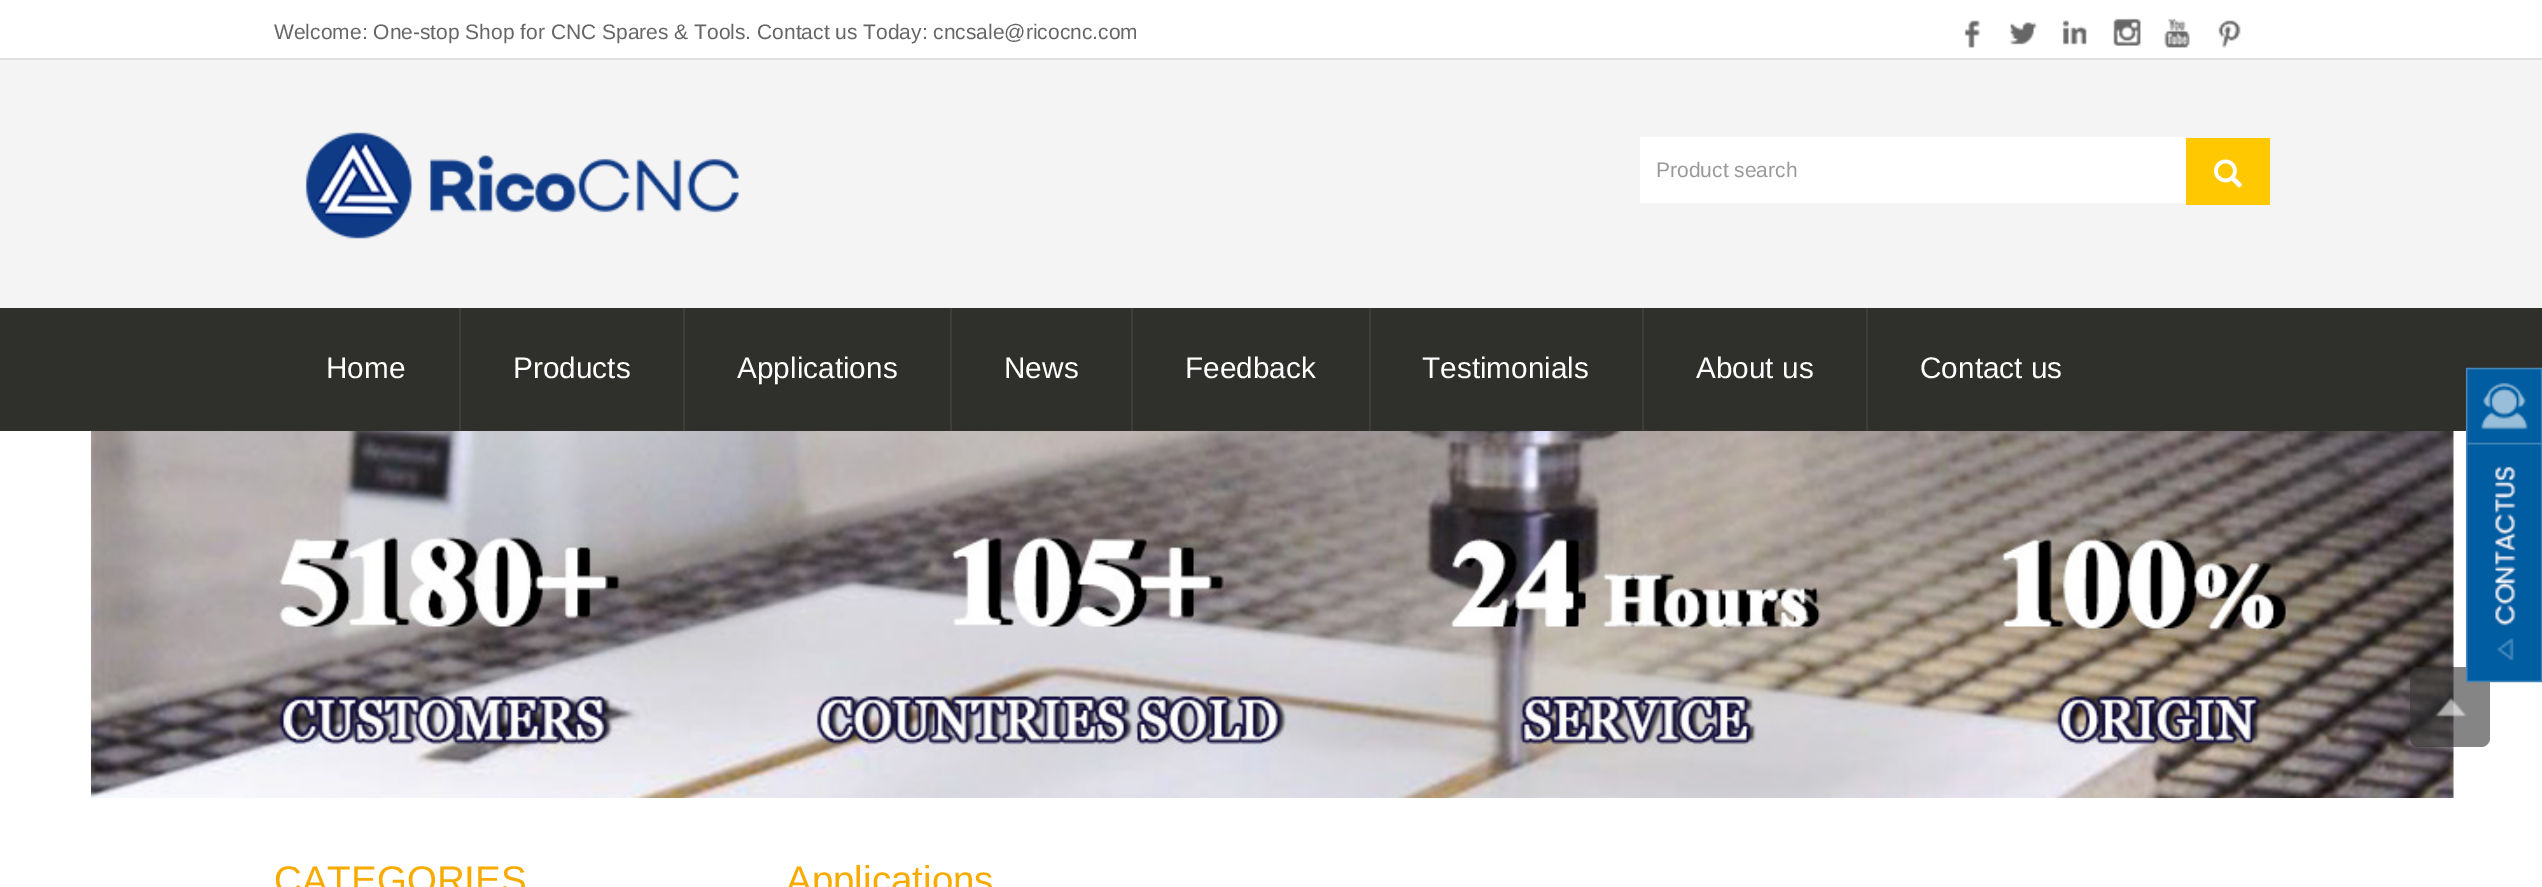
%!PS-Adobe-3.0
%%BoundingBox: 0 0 2542 887
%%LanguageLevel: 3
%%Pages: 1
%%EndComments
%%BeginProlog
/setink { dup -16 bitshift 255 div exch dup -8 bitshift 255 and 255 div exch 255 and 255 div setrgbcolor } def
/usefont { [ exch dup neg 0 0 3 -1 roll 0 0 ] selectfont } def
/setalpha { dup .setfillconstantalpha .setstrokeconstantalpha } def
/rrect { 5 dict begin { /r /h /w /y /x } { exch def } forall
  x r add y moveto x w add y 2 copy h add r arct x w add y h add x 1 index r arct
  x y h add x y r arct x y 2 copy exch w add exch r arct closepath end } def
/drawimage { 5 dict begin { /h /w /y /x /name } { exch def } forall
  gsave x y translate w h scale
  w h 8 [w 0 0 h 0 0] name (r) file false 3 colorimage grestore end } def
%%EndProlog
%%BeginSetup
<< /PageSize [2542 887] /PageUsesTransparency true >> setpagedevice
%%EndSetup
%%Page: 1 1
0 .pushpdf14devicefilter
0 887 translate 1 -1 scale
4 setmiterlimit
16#FFFFFF setink
0 0 2542 887 rectfill
16#F4F4F4 setink
0 60 2542 248 rectfill
16#E2E0E0 setink
0 58 2542 2 rectfill
/LiberationSans-Regular 21 usefont
16#666666 setink
274 39 moveto (Welcome: One-stop Shop for CNC Spares & Tools. Contact us Today: cncsale@ricocnc.com) show
(img1.raw) 1964 20 16 28 drawimage
(img2.raw) 2009 22 29 23 drawimage
(img3.raw) 2062 20 25 25 drawimage
(img4.raw) 2113 18 28 28 drawimage
(img5.raw) 2164 18 26 30 drawimage
(img6.raw) 2218 20 23 28 drawimage
(img7.raw) 305 132 434 107 drawimage
16#FFFFFF setink
1640 137 546 66 rectfill
16#999999 setink
1656 177 moveto (Product search) show
16#FFC800 setink
2186 138 84 67 rectfill
(img8.raw) 2214 159 28 29 drawimage
16#2F2F2C setink
0 308 2542 123 rectfill
16#3E3E34 setink
459 308 2 123 rectfill
/LiberationSans-Regular 29.75 usefont
16#FFFFFF setink
326 378 moveto (Home) show
16#3E3E34 setink
683 308 2 123 rectfill
16#FFFFFF setink
513 378 moveto (Products) show
16#3E3E34 setink
950 308 2 123 rectfill
16#FFFFFF setink
737 378 moveto (Applications) show
16#3E3E34 setink
1131 308 2 123 rectfill
16#FFFFFF setink
1004 378 moveto (News) show
16#3E3E34 setink
1369 308 2 123 rectfill
16#FFFFFF setink
1185 378 moveto (Feedback) show
16#3E3E34 setink
1642 308 2 123 rectfill
16#FFFFFF setink
1422 378 moveto (Testimonials) show
16#3E3E34 setink
1866 308 2 123 rectfill
16#FFFFFF setink
1696 378 moveto (About us) show
1920 378 moveto (Contact us) show
(img9.raw) 91 431 2363 367 drawimage
0.6 setalpha
16#333333 setink
2410 667 80 80 9 rrect fill
1 setalpha
(img10.raw) 2465 367 77 316 drawimage
(img11.raw) 2435 697 32 20 drawimage
/LiberationSans-Regular 38.5 usefont
16#F7AB00 setink
274 893 moveto (CATEGORIES) show
786 893 moveto (Applications) show
.poppdf14devicefilter showpage
%%EOF
